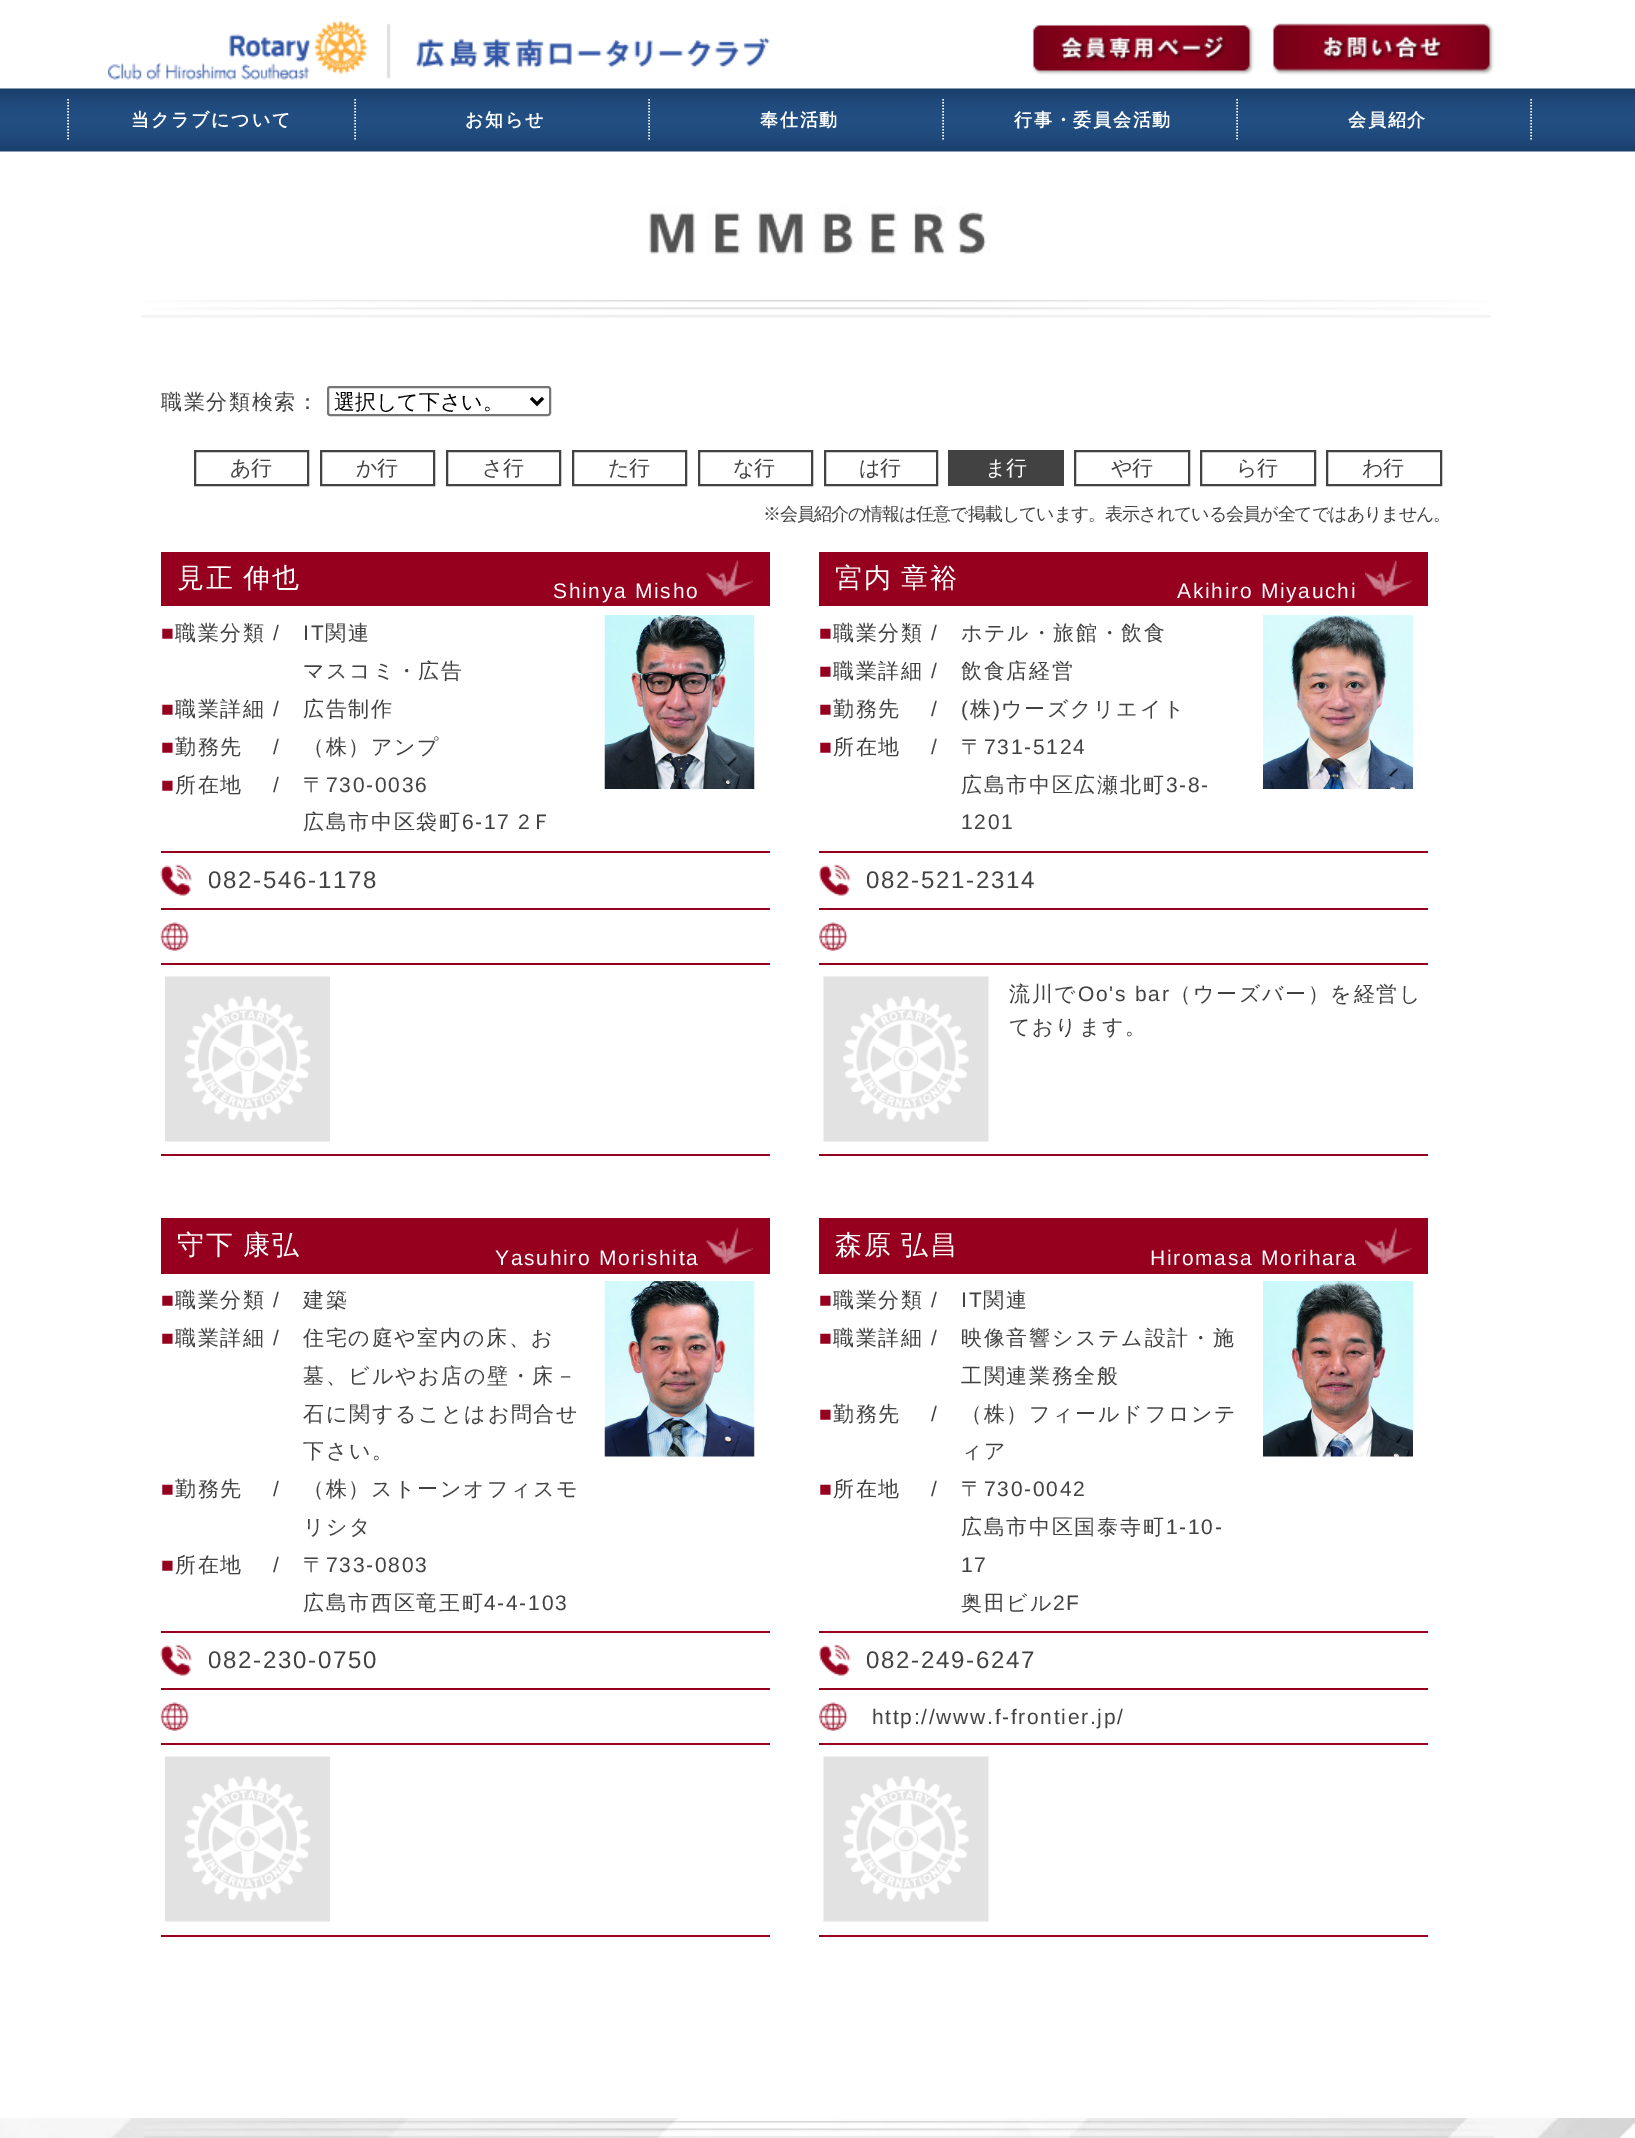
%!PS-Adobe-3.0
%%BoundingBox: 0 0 1635 2138
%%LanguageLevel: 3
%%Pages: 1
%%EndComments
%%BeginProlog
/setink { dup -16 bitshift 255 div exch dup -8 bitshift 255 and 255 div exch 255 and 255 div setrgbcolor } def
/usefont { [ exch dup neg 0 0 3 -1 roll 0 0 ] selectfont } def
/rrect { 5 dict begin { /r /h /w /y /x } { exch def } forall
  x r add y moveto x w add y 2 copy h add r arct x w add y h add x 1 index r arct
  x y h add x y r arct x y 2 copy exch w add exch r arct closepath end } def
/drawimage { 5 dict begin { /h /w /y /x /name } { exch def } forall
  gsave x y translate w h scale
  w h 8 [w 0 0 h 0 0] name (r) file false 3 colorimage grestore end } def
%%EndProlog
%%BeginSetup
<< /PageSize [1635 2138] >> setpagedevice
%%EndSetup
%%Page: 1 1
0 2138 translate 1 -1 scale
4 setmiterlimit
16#FFFFFF setink
0 0 1635 2138 rectfill
(img1.raw) 108 21 662 59 drawimage
(img2.raw) 1032 24 222 51 drawimage
(img3.raw) 1272 23 222 52 drawimage
(img4.raw) 0 88 1635 64 drawimage
1.5 setlinewidth
[1.5 1.5] 0 setdash
355 99 moveto 355 141 lineto stroke
68 99 moveto 68 141 lineto stroke
/WenQuanYiZenHei-Bold 18 usefont
131 126 moveto 1.75 0 (当クラブについて) ashow
649 99 moveto 649 141 lineto stroke
465 126 moveto 1.75 0 (お知らせ) ashow
943 99 moveto 943 141 lineto stroke
760 126 moveto 1.75 0 (奉仕活動) ashow
1237 99 moveto 1237 141 lineto stroke
1014 126 moveto 1.75 0 (行事・委員会活動) ashow
1531 99 moveto 1531 141 lineto stroke
1348 126 moveto 1.75 0 (会員紹介) ashow
(img5.raw) 648 207 342 48 drawimage
(img6.raw) 141 300 1350 18 drawimage
/WenQuanYiZenHei-Medium 21 usefont
16#424242 setink
161 409 moveto 1.7 0 (職業分類検索：) ashow
16#767676 setink
2 setlinewidth
[] 0 setdash
328 387 222 28 2 rrect stroke
16#000000 setink
3 setlinewidth
531 398 moveto 537 404 lineto 543 398 lineto stroke
334 409 moveto (選択して下さい。) show
16#424242 setink
2 setlinewidth
195 451 113 34 rectstroke
230 475 moveto (あ行) show
321 451 113 34 rectstroke
356 475 moveto (か行) show
447 451 113 34 rectstroke
482 475 moveto (さ行) show
573 451 113 34 rectstroke
608 475 moveto (た行) show
699 451 113 34 rectstroke
733 475 moveto (な行) show
825 451 112 34 rectstroke
859 475 moveto (は行) show
948 450 116 36 rectfill
16#FFFFFF setink
985 475 moveto (ま行) show
16#424242 setink
1075 451 114 34 rectstroke
1111 475 moveto (や行) show
1201 451 114 34 rectstroke
1236 475 moveto (ら行) show
1327 451 114 34 rectstroke
1362 475 moveto (わ行) show
/WenQuanYiZenHei-Medium 18 usefont
763 520 moveto -1.05 0 (※会員紹介の情報は任意で掲載しています。表示されている会員が全てではありません。) ashow
16#96001E setink
161 552 609 54 rectfill
/WenQuanYiZenHei-Medium 27 usefont
16#FFFFFF setink
177 587 moveto -1 0 32 1.7 0 (見正 伸也) awidthshow
/LiberationSans-Regular 21 usefont
553 598 moveto 1.7 0 (Shinya Misho) ashow
(img7.raw) 706 559 47 38 drawimage
16#96001E setink
161 640 moveto 1.7 0 (■) ashow
/WenQuanYiZenHei-Medium 21 usefont
16#424242 setink
175 640 moveto 1.7 0 (職業分類) ashow
/LiberationSans-Regular 21 usefont
273 640 moveto 1.7 0 (/) ashow
303 640 moveto 1.7 0 (IT) ashow
/WenQuanYiZenHei-Medium 21 usefont
325 640 moveto 1.7 0 (関連) ashow
303 678 moveto 1.7 0 (マスコミ・広告) ashow
/LiberationSans-Regular 21 usefont
16#96001E setink
161 716 moveto 1.7 0 (■) ashow
/WenQuanYiZenHei-Medium 21 usefont
16#424242 setink
175 716 moveto 1.7 0 (職業詳細) ashow
/LiberationSans-Regular 21 usefont
273 716 moveto 1.7 0 (/) ashow
/WenQuanYiZenHei-Medium 21 usefont
303 716 moveto 1.7 0 (広告制作) ashow
/LiberationSans-Regular 21 usefont
16#96001E setink
161 754 moveto 1.7 0 (■) ashow
/WenQuanYiZenHei-Medium 21 usefont
16#424242 setink
175 754 moveto 1.7 0 (勤務先) ashow
/LiberationSans-Regular 21 usefont
273 754 moveto 1.7 0 (/) ashow
/WenQuanYiZenHei-Medium 21 usefont
303 754 moveto 1.7 0 (（株）アンプ) ashow
/LiberationSans-Regular 21 usefont
16#96001E setink
161 792 moveto 1.7 0 (■) ashow
/WenQuanYiZenHei-Medium 21 usefont
16#424242 setink
175 792 moveto 1.7 0 (所在地) ashow
/LiberationSans-Regular 21 usefont
273 792 moveto 1.7 0 (/) ashow
/WenQuanYiZenHei-Medium 21 usefont
303 792 moveto 1.7 0 (〒) ashow
/LiberationSans-Regular 21 usefont
326 792 moveto 1.7 0 (730-0036) ashow
/WenQuanYiZenHei-Medium 21 usefont
303 829 moveto 1.7 0 (広島市中区袋町) ashow
/LiberationSans-Regular 21 usefont
462 829 moveto 1.7 0 (6-17 2) ashow
/WenQuanYiZenHei-Medium 21 usefont
531 829 moveto 1.7 0 (Ｆ) ashow
(img8.raw) 604 615 151 174 drawimage
16#96001E setink
161 851 609 2 rectfill
161 908 609 2 rectfill
(img9.raw) 160 864 32 32 drawimage
/LiberationSans-Regular 24 usefont
16#424242 setink
208 888 moveto 1.7 0 (082-546-1178) ashow
16#96001E setink
161 963 609 2 rectfill
(img10.raw) 160 922 29 29 drawimage
161 1154 609 2 rectfill
(img11.raw) 165 976 165 166 drawimage
819 552 609 54 rectfill
/WenQuanYiZenHei-Medium 27 usefont
16#FFFFFF setink
835 587 moveto -1 0 32 1.7 0 (宮内 章裕) awidthshow
/LiberationSans-Regular 21 usefont
1177 598 moveto 1.7 0 (Akihiro Miyauchi) ashow
(img12.raw) 1365 559 47 38 drawimage
16#96001E setink
819 640 moveto 1.7 0 (■) ashow
/WenQuanYiZenHei-Medium 21 usefont
16#424242 setink
833 640 moveto 1.7 0 (職業分類) ashow
/LiberationSans-Regular 21 usefont
931 640 moveto 1.7 0 (/) ashow
/WenQuanYiZenHei-Medium 21 usefont
961 640 moveto 1.7 0 (ホテル・旅館・飲食) ashow
/LiberationSans-Regular 21 usefont
16#96001E setink
819 678 moveto 1.7 0 (■) ashow
/WenQuanYiZenHei-Medium 21 usefont
16#424242 setink
833 678 moveto 1.7 0 (職業詳細) ashow
/LiberationSans-Regular 21 usefont
931 678 moveto 1.7 0 (/) ashow
/WenQuanYiZenHei-Medium 21 usefont
961 678 moveto 1.7 0 (飲食店経営) ashow
/LiberationSans-Regular 21 usefont
16#96001E setink
819 716 moveto 1.7 0 (■) ashow
/WenQuanYiZenHei-Medium 21 usefont
16#424242 setink
833 716 moveto 1.7 0 (勤務先) ashow
/LiberationSans-Regular 21 usefont
931 716 moveto 1.7 0 (/) ashow
961 716 moveto 1.7 0 (\() ashow
/WenQuanYiZenHei-Medium 21 usefont
970 716 moveto 1.7 0 (株) ashow
/LiberationSans-Regular 21 usefont
993 716 moveto 1.7 0 (\)) ashow
/WenQuanYiZenHei-Medium 21 usefont
1001 716 moveto 1.7 0 (ウーズクリエイト) ashow
/LiberationSans-Regular 21 usefont
16#96001E setink
819 754 moveto 1.7 0 (■) ashow
/WenQuanYiZenHei-Medium 21 usefont
16#424242 setink
833 754 moveto 1.7 0 (所在地) ashow
/LiberationSans-Regular 21 usefont
931 754 moveto 1.7 0 (/) ashow
/WenQuanYiZenHei-Medium 21 usefont
961 754 moveto 1.7 0 (〒) ashow
/LiberationSans-Regular 21 usefont
984 754 moveto 1.7 0 (731-5124) ashow
/WenQuanYiZenHei-Medium 21 usefont
961 792 moveto 1.7 0 (広島市中区広瀬北町) ashow
/LiberationSans-Regular 21 usefont
1166 792 moveto 1.7 0 (3-8-) ashow
961 829 moveto 1.7 0 (1201) ashow
(img13.raw) 1263 615 150 174 drawimage
16#96001E setink
819 851 609 2 rectfill
819 908 609 2 rectfill
(img14.raw) 819 864 32 32 drawimage
/LiberationSans-Regular 24 usefont
16#424242 setink
866 888 moveto 1.7 0 (082-521-2314) ashow
16#96001E setink
819 963 609 2 rectfill
(img15.raw) 819 922 29 29 drawimage
819 1154 609 2 rectfill
(img16.raw) 823 976 166 166 drawimage
/WenQuanYiZenHei-Medium 21 usefont
16#424242 setink
1009 1001 moveto 1.7 0 (流川で) ashow
/LiberationSans-Regular 21 usefont
1078 1001 moveto 1.7 0 (Oo's bar) ashow
/WenQuanYiZenHei-Medium 21 usefont
1170 1001 moveto 1.7 0 (（ウーズバー）を経営し) ashow
1009 1034 moveto 1.7 0 (ております。) ashow
16#96001E setink
161 1218 609 56 rectfill
/WenQuanYiZenHei-Medium 27 usefont
16#FFFFFF setink
177 1254 moveto -1 0 32 1.7 0 (守下 康弘) awidthshow
/LiberationSans-Regular 21 usefont
495 1265 moveto 1.7 0 (Yasuhiro Morishita) ashow
(img17.raw) 706 1227 47 38 drawimage
16#96001E setink
161 1307 moveto 1.7 0 (■) ashow
/WenQuanYiZenHei-Medium 21 usefont
16#424242 setink
175 1307 moveto 1.7 0 (職業分類) ashow
/LiberationSans-Regular 21 usefont
273 1307 moveto 1.7 0 (/) ashow
/WenQuanYiZenHei-Medium 21 usefont
303 1307 moveto 1.7 0 (建築) ashow
/LiberationSans-Regular 21 usefont
16#96001E setink
161 1345 moveto 1.7 0 (■) ashow
/WenQuanYiZenHei-Medium 21 usefont
16#424242 setink
175 1345 moveto 1.7 0 (職業詳細) ashow
/LiberationSans-Regular 21 usefont
273 1345 moveto 1.7 0 (/) ashow
/WenQuanYiZenHei-Medium 21 usefont
303 1345 moveto 1.7 0 (住宅の庭や室内の床、お) ashow
303 1383 moveto 1.7 0 (墓、ビルやお店の壁・床－) ashow
303 1421 moveto 1.7 0 (石に関することはお問合せ) ashow
303 1458 moveto 1.7 0 (下さい。) ashow
/LiberationSans-Regular 21 usefont
16#96001E setink
161 1496 moveto 1.7 0 (■) ashow
/WenQuanYiZenHei-Medium 21 usefont
16#424242 setink
175 1496 moveto 1.7 0 (勤務先) ashow
/LiberationSans-Regular 21 usefont
273 1496 moveto 1.7 0 (/) ashow
/WenQuanYiZenHei-Medium 21 usefont
303 1496 moveto 1.7 0 (（株）ストーンオフィスモ) ashow
303 1534 moveto 1.7 0 (リシタ) ashow
/LiberationSans-Regular 21 usefont
16#96001E setink
161 1572 moveto 1.7 0 (■) ashow
/WenQuanYiZenHei-Medium 21 usefont
16#424242 setink
175 1572 moveto 1.7 0 (所在地) ashow
/LiberationSans-Regular 21 usefont
273 1572 moveto 1.7 0 (/) ashow
/WenQuanYiZenHei-Medium 21 usefont
303 1572 moveto 1.7 0 (〒) ashow
/LiberationSans-Regular 21 usefont
326 1572 moveto 1.7 0 (733-0803) ashow
/WenQuanYiZenHei-Medium 21 usefont
303 1610 moveto 1.7 0 (広島市西区竜王町) ashow
/LiberationSans-Regular 21 usefont
484 1610 moveto 1.7 0 (4-4-103) ashow
(img18.raw) 604 1281 151 176 drawimage
16#96001E setink
161 1631 609 2 rectfill
161 1688 609 2 rectfill
(img9.raw) 160 1644 32 32 drawimage
/LiberationSans-Regular 24 usefont
16#424242 setink
208 1668 moveto 1.7 0 (082-230-0750) ashow
16#96001E setink
161 1743 609 2 rectfill
(img10.raw) 160 1702 29 29 drawimage
161 1935 609 2 rectfill
(img19.raw) 165 1756 165 166 drawimage
819 1218 609 56 rectfill
/WenQuanYiZenHei-Medium 27 usefont
16#FFFFFF setink
835 1254 moveto -1 0 32 1.7 0 (森原 弘昌) awidthshow
/LiberationSans-Regular 21 usefont
1150 1265 moveto 1.7 0 (Hiromasa Morihara) ashow
(img20.raw) 1365 1227 47 38 drawimage
16#96001E setink
819 1307 moveto 1.7 0 (■) ashow
/WenQuanYiZenHei-Medium 21 usefont
16#424242 setink
833 1307 moveto 1.7 0 (職業分類) ashow
/LiberationSans-Regular 21 usefont
931 1307 moveto 1.7 0 (/) ashow
961 1307 moveto 1.7 0 (IT) ashow
/WenQuanYiZenHei-Medium 21 usefont
983 1307 moveto 1.7 0 (関連) ashow
/LiberationSans-Regular 21 usefont
16#96001E setink
819 1345 moveto 1.7 0 (■) ashow
/WenQuanYiZenHei-Medium 21 usefont
16#424242 setink
833 1345 moveto 1.7 0 (職業詳細) ashow
/LiberationSans-Regular 21 usefont
931 1345 moveto 1.7 0 (/) ashow
/WenQuanYiZenHei-Medium 21 usefont
961 1345 moveto 1.7 0 (映像音響システム設計・施) ashow
961 1383 moveto 1.7 0 (工関連業務全般) ashow
/LiberationSans-Regular 21 usefont
16#96001E setink
819 1421 moveto 1.7 0 (■) ashow
/WenQuanYiZenHei-Medium 21 usefont
16#424242 setink
833 1421 moveto 1.7 0 (勤務先) ashow
/LiberationSans-Regular 21 usefont
931 1421 moveto 1.7 0 (/) ashow
/WenQuanYiZenHei-Medium 21 usefont
961 1421 moveto 1.7 0 (（株）フィールドフロンテ) ashow
961 1458 moveto 1.7 0 (ィア) ashow
/LiberationSans-Regular 21 usefont
16#96001E setink
819 1496 moveto 1.7 0 (■) ashow
/WenQuanYiZenHei-Medium 21 usefont
16#424242 setink
833 1496 moveto 1.7 0 (所在地) ashow
/LiberationSans-Regular 21 usefont
931 1496 moveto 1.7 0 (/) ashow
/WenQuanYiZenHei-Medium 21 usefont
961 1496 moveto 1.7 0 (〒) ashow
/LiberationSans-Regular 21 usefont
984 1496 moveto 1.7 0 (730-0042) ashow
/WenQuanYiZenHei-Medium 21 usefont
961 1534 moveto 1.7 0 (広島市中区国泰寺町) ashow
/LiberationSans-Regular 21 usefont
1166 1534 moveto 1.7 0 (1-10-) ashow
961 1572 moveto 1.7 0 (17) ashow
/WenQuanYiZenHei-Medium 21 usefont
961 1610 moveto 1.7 0 (奥田ビル) ashow
/LiberationSans-Regular 21 usefont
1053 1610 moveto 1.7 0 (2F) ashow
(img21.raw) 1263 1281 150 176 drawimage
16#96001E setink
819 1631 609 2 rectfill
819 1688 609 2 rectfill
(img14.raw) 819 1644 32 32 drawimage
/LiberationSans-Regular 24 usefont
16#424242 setink
866 1668 moveto 1.7 0 (082-249-6247) ashow
16#96001E setink
819 1743 609 2 rectfill
(img15.raw) 819 1702 29 29 drawimage
/LiberationSans-Regular 21 usefont
16#424242 setink
872 1724 moveto 1.7 0 (http://www.f-frontier.jp/) ashow
16#96001E setink
819 1935 609 2 rectfill
(img22.raw) 823 1756 166 166 drawimage
(img23.raw) 0 2118 1635 20 drawimage
(img24.raw) 144 2121 1350 17 drawimage
showpage
%%EOF
